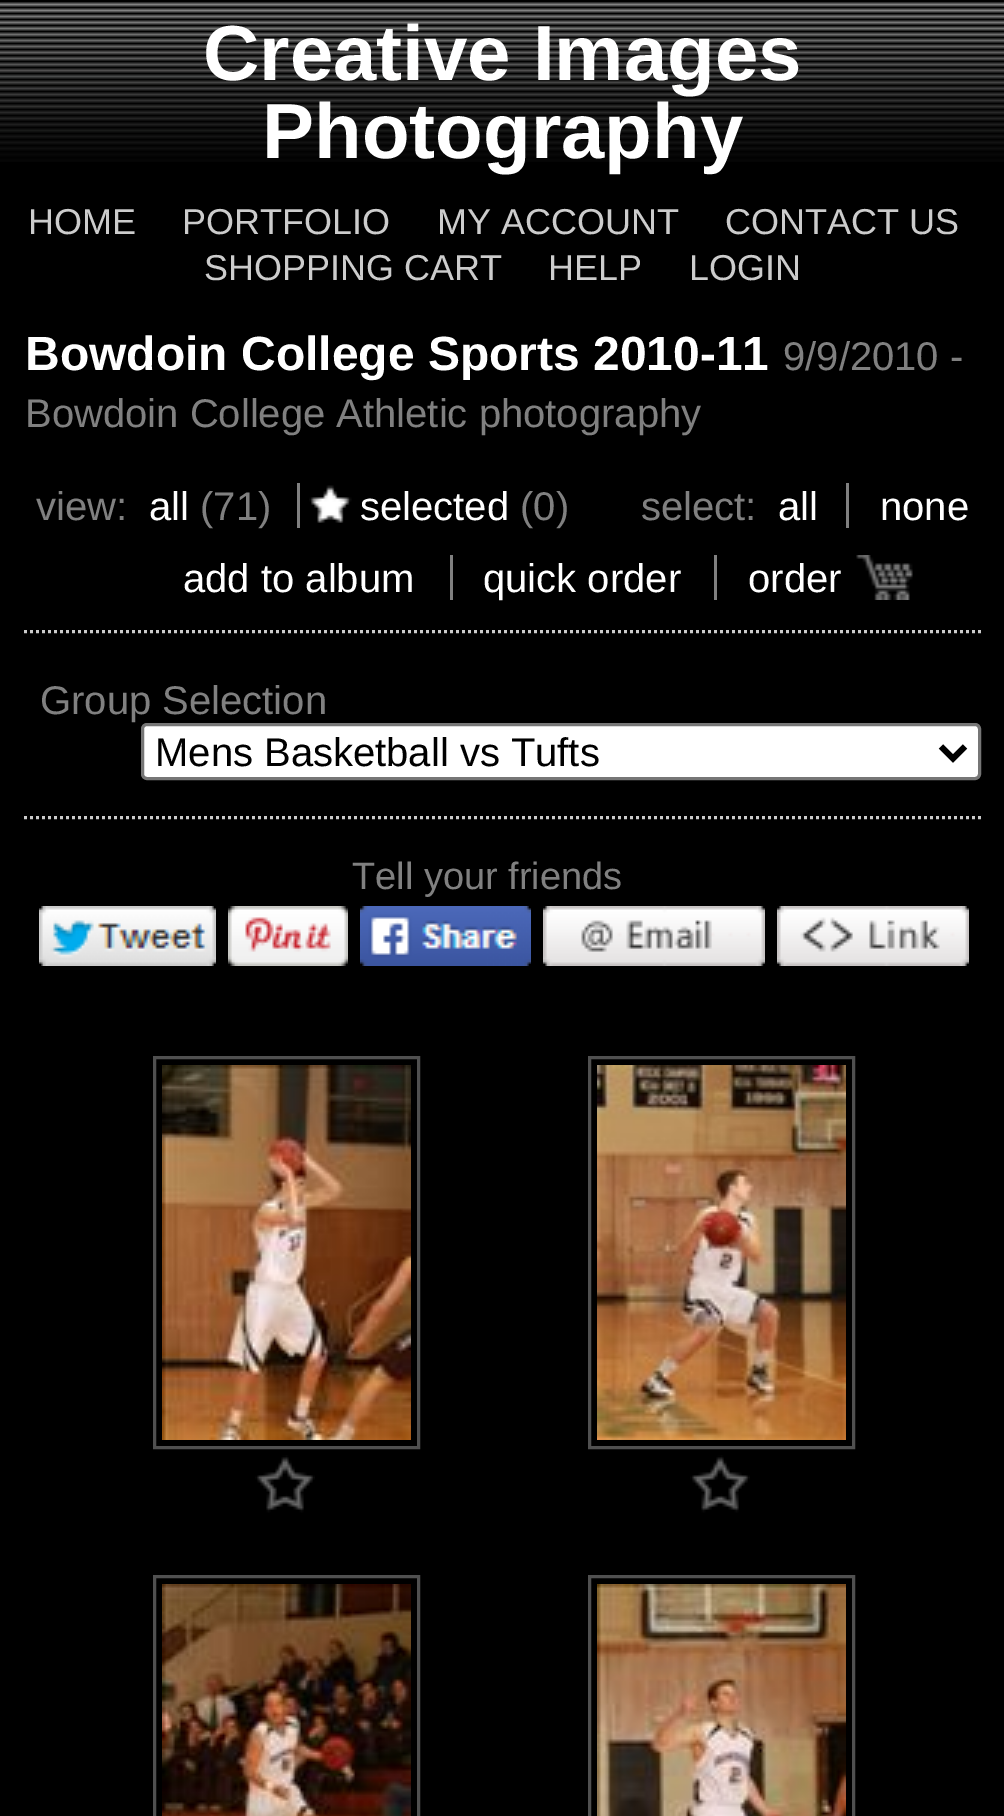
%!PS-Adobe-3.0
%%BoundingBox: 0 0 1004 1816
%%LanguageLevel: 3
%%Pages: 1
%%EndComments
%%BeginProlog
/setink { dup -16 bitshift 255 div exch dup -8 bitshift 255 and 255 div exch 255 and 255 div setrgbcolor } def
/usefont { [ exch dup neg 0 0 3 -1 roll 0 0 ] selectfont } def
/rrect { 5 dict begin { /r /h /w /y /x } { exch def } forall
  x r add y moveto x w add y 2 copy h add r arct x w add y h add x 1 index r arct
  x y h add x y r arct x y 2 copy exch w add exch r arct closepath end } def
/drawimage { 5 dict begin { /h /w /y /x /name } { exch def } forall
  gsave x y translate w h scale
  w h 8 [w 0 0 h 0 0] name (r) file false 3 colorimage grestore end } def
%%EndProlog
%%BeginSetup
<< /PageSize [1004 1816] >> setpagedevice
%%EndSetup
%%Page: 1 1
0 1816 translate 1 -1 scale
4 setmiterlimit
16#000000 setink
0 0 1004 1816 rectfill
(img1.raw) 0 2 1004 160 drawimage
/LiberationSans-Bold 78 usefont
16#FFFFFF setink
203 80 moveto (Creative Images) show
262 158 moveto (Photography) show
/LiberationSans-Regular 36 usefont
16#CCCCCC setink
[
    [(HOME) 28 234]
    [(PORTFOLIO) 182 234]
    [(MY ACCOUNT) 437 234]
    [(CONTACT US) 725 234]
    [(SHOPPING CART) 204 280]
    [(HELP) 548 280]
    [(LOGIN) 689 280]
] { aload pop moveto show } forall
/LiberationSans-Bold 48 usefont
16#FFFFFF setink
25 370 moveto (Bowdoin College Sports 2010-11) show
/LiberationSans-Regular 40 usefont
16#808080 setink
[
    [(9/9/2010 -) 783 370]
    [(Bowdoin College Athletic photography) 25 427]
    [(view:) 36 520]
] { aload pop moveto show } forall
16#FFFFFF setink
149 520 moveto (all) show
16#808080 setink
200 520 moveto (\(71\)) show
(img2.raw) 309 485 43 38 drawimage
16#FFFFFF setink
360 520 moveto (selected) show
16#808080 setink
297 483 3 45 rectfill
520 520 moveto (\(0\)) show
641 520 moveto (select:) show
16#FFFFFF setink
778 520 moveto (all) show
880 520 moveto (none) show
16#808080 setink
846 483 3 45 rectfill
16#FFFFFF setink
183 592 moveto (add to album) show
483 592 moveto (quick order) show
16#808080 setink
450 555 3 45 rectfill
16#FFFFFF setink
748 592 moveto (order) show
16#808080 setink
714 555 3 45 rectfill
(img3.raw) 856 555 57 45 drawimage
16#CCCCCC setink
3 setlinewidth
[3 3] 0 setdash
24 631.5 moveto 981 631.5 lineto stroke
24 817.5 moveto 981 817.5 lineto stroke
16#808080 setink
40 714 moveto (Group Selection) show
16#FFFFFF setink
142.5 724.5 837 54 4.5 rrect gsave fill grestore
16#767676 setink
[] 0 setdash
stroke
16#000000 setink
6 setlinewidth
941 746.5 moveto 953 758.5 lineto 965 746.5 lineto stroke
155 766 moveto (Mens Basketball vs Tufts) show
/LiberationSans-Regular 38 usefont
16#808080 setink
352 889 moveto (Tell your friends) show
(img4.raw) 39 906 177 60 drawimage
(img5.raw) 228 906 120 60 drawimage
(img6.raw) 360 906 171 60 drawimage
(img7.raw) 543 906 222 60 drawimage
(img8.raw) 777 906 192 60 drawimage
(img9.raw) 162 1065 249 375 drawimage
16#505050 setink
3 setlinewidth
154.5 1057.5 264 390 rectstroke
(img10.raw) 255 1455 60 58 drawimage
(img11.raw) 597 1065 249 375 drawimage
589.5 1057.5 264 390 rectstroke
(img10.raw) 690 1455 60 58 drawimage
(img12.raw) 162 1584 249 232 drawimage
154.5 1576.5 264 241 rectstroke
(img13.raw) 597 1584 249 232 drawimage
589.5 1576.5 264 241 rectstroke
showpage
%%EOF
